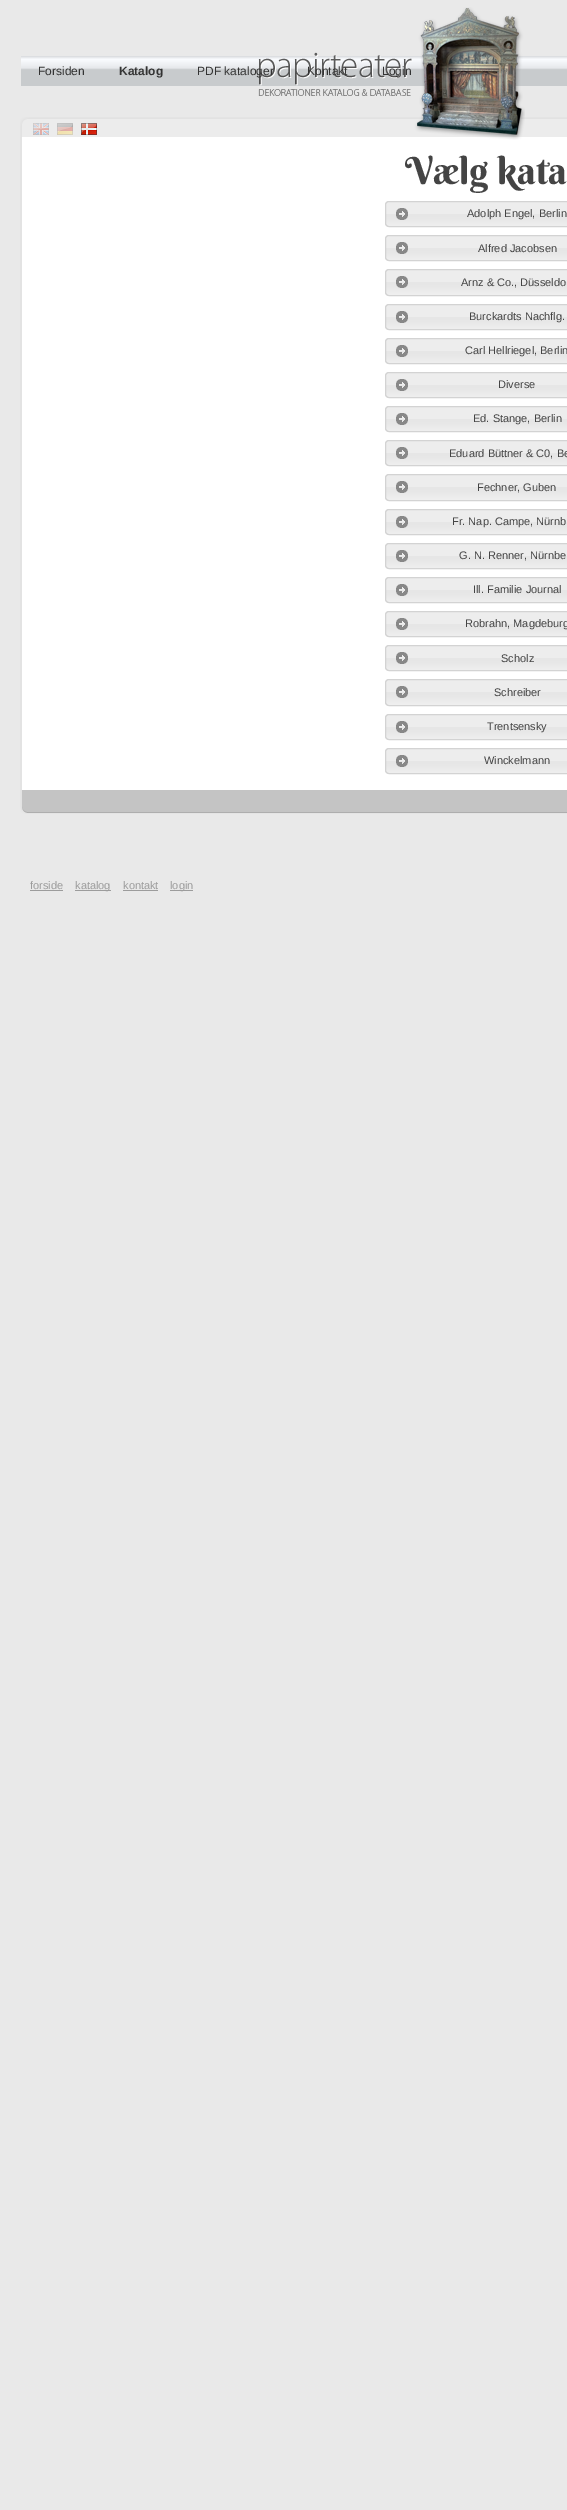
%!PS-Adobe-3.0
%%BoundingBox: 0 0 567 2510
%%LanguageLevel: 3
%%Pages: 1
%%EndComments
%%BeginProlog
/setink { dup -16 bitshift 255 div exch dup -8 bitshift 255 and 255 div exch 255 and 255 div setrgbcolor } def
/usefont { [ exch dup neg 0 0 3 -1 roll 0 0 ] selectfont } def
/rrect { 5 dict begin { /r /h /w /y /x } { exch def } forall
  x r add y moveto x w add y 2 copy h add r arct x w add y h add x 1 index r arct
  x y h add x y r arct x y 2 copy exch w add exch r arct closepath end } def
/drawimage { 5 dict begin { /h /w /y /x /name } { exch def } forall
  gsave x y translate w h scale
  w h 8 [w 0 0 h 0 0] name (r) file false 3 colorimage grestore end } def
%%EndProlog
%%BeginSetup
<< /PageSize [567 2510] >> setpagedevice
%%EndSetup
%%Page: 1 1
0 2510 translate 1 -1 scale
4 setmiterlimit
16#E9E9E9 setink
0 0 567 2510 rectfill
(img1.raw) 515 56 52 30 drawimage
(img3.raw) 21 56 404 30 drawimage
(img4.raw) 20 117 547 20 drawimage
16#FFFFFF setink
22 137 545 653 rectfill
(img2.raw) 258 7 267 133 drawimage
/LiberationSans-Regular 12 usefont
16#333333 setink
38 75 moveto (Forsiden) show
/LiberationSans-Bold 12 usefont
119 75 moveto (Katalog) show
/LiberationSans-Regular 12 usefont
[
    [(PDF kataloger) 197 75]
    [(Kontakt) 307 75]
    [(Login) 382 75]
] { aload pop moveto show } forall
(img5.raw) 33 123 16 12 drawimage
(img6.raw) 57 123 16 12 drawimage
(img7.raw) 81 123 16 12 drawimage
16#E3E3E3 setink
20 137 2 653 rectfill
/BerkshireSwash-Regular 37.5 usefont
16#444444 setink
405 184 moveto (Vælg kata) show
(img8.raw) 385 201 182 26 drawimage
16#D3D3D3 setink
385.5 201.5 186 25 3.5 rrect stroke
(img9.raw) 396 208 12 12 drawimage
/LiberationSans-Regular 11 usefont
16#444444 setink
467 217 moveto (Adolph Engel, Berlin) show
(img8.raw) 385 235 182 26 drawimage
16#D3D3D3 setink
385.5 235.5 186 25 3.5 rrect stroke
(img9.raw) 396 242 12 12 drawimage
16#444444 setink
478 252 moveto (Alfred Jacobsen) show
(img10.raw) 385 269 182 27 drawimage
16#D3D3D3 setink
385.5 269.5 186 26 3.5 rrect stroke
(img9.raw) 396 276 12 12 drawimage
16#444444 setink
461 286 moveto (Arnz & Co., Düsseldo) show
(img8.raw) 385 304 182 26 drawimage
16#D3D3D3 setink
385.5 304.5 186 25 3.5 rrect stroke
(img9.raw) 396 311 12 12 drawimage
16#444444 setink
469 320 moveto (Burckardts Nachflg.) show
(img8.raw) 385 338 182 26 drawimage
16#D3D3D3 setink
385.5 338.5 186 25 3.5 rrect stroke
(img9.raw) 396 345 12 12 drawimage
16#444444 setink
465 354 moveto (Carl Hellriegel, Berlin) show
(img8.raw) 385 372 182 26 drawimage
16#D3D3D3 setink
385.5 372.5 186 25 3.5 rrect stroke
(img9.raw) 396 379 12 12 drawimage
16#444444 setink
498 388 moveto (Diverse) show
(img8.raw) 385 406 182 26 drawimage
16#D3D3D3 setink
385.5 406.5 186 25 3.5 rrect stroke
(img9.raw) 396 413 12 12 drawimage
16#444444 setink
473 422 moveto (Ed. Stange, Berlin) show
(img8.raw) 385 440 182 26 drawimage
16#D3D3D3 setink
385.5 440.5 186 25 3.5 rrect stroke
(img9.raw) 396 447 12 12 drawimage
16#444444 setink
449 457 moveto (Eduard Büttner & C0, Be) show
(img10.raw) 385 474 182 27 drawimage
16#D3D3D3 setink
385.5 474.5 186 26 3.5 rrect stroke
(img9.raw) 396 481 12 12 drawimage
16#444444 setink
477 491 moveto (Fechner, Guben) show
(img8.raw) 385 509 182 26 drawimage
16#D3D3D3 setink
385.5 509.5 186 25 3.5 rrect stroke
(img9.raw) 396 516 12 12 drawimage
16#444444 setink
452 525 moveto (Fr. Nap. Campe, Nürnb) show
(img8.raw) 385 543 182 26 drawimage
16#D3D3D3 setink
385.5 543.5 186 25 3.5 rrect stroke
(img9.raw) 396 550 12 12 drawimage
16#444444 setink
459 559 moveto (G. N. Renner, Nürnbe) show
(img8.raw) 385 577 182 26 drawimage
16#D3D3D3 setink
385.5 577.5 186 25 3.5 rrect stroke
(img9.raw) 396 584 12 12 drawimage
16#444444 setink
473 593 moveto (Ill. Familie Journal) show
(img8.raw) 385 611 182 26 drawimage
16#D3D3D3 setink
385.5 611.5 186 25 3.5 rrect stroke
(img9.raw) 396 618 12 12 drawimage
16#444444 setink
465 627 moveto (Robrahn, Magdeburg) show
(img8.raw) 385 645 182 26 drawimage
16#D3D3D3 setink
385.5 645.5 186 25 3.5 rrect stroke
(img9.raw) 396 652 12 12 drawimage
16#444444 setink
501 662 moveto (Scholz) show
(img10.raw) 385 679 182 27 drawimage
16#D3D3D3 setink
385.5 679.5 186 26 3.5 rrect stroke
(img9.raw) 396 686 12 12 drawimage
16#444444 setink
494 696 moveto (Schreiber) show
(img8.raw) 385 714 182 26 drawimage
16#D3D3D3 setink
385.5 714.5 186 25 3.5 rrect stroke
(img9.raw) 396 721 12 12 drawimage
16#444444 setink
487 730 moveto (Trentsensky) show
(img8.raw) 385 748 182 26 drawimage
16#D3D3D3 setink
385.5 748.5 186 25 3.5 rrect stroke
(img9.raw) 396 755 12 12 drawimage
16#444444 setink
484 764 moveto (Winckelmann) show
(img11.raw) 20 790 547 24 drawimage
16#9C9C9C setink
30 889 moveto (forside) show
30 890 33 1 rectfill
75 890 36 1 rectfill
75 889 moveto (katalog) show
123 889 moveto (kontakt) show
123 890 35 1 rectfill
170 890 23 1 rectfill
170 889 moveto (login) show
showpage
%%EOF
